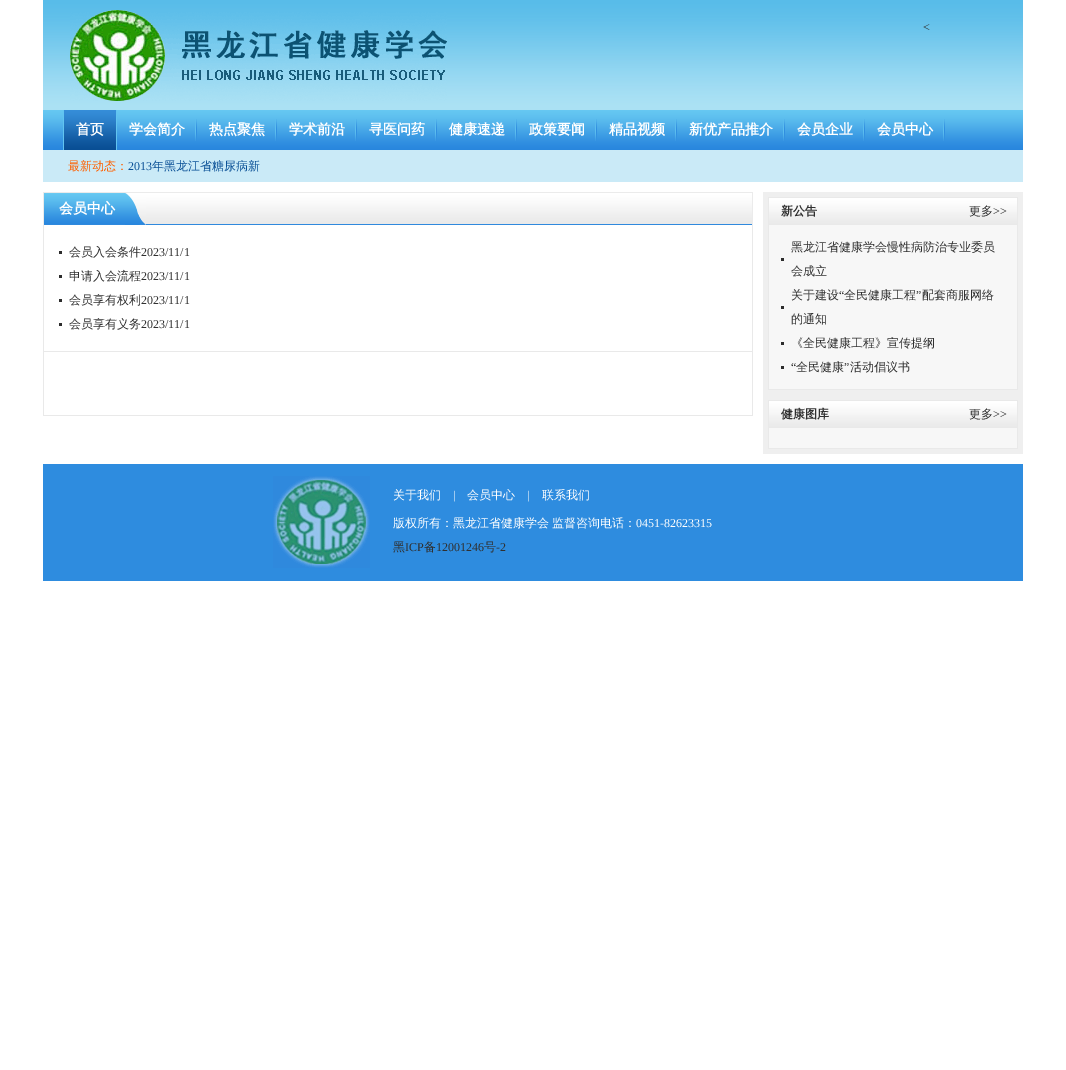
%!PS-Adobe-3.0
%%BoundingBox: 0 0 1066 1070
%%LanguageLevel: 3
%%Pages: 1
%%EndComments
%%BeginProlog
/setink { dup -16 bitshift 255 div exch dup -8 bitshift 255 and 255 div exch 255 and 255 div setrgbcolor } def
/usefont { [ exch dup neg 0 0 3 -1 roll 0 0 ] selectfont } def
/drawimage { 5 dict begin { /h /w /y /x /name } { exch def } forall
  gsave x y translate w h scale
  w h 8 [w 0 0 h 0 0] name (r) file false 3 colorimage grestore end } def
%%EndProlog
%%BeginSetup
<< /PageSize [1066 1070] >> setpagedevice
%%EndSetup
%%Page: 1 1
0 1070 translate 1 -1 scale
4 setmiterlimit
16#FFFFFF setink
0 0 1066 1070 rectfill
(img1.raw) 43 0 980 110 drawimage
(img2.raw) 70 10 377 91 drawimage
/LiberationSerif-Regular 12 usefont
16#303030 setink
923 31 moveto (<) show
(img3.raw) 43 110 980 40 drawimage
(img4.raw) 64 110 52 40 drawimage
16#62C4F0 setink
116 110 1 40 rectfill
63 110 1 40 rectfill
/WenQuanYiZenHei-Bold 14 usefont
16#FFFFFF setink
76 134 moveto (首页) show
(img5.raw) 195 119 2 22 drawimage
129 134 moveto (学会简介) show
(img5.raw) 275 119 2 22 drawimage
209 134 moveto (热点聚焦) show
(img5.raw) 355 119 2 22 drawimage
289 134 moveto (学术前沿) show
(img5.raw) 435 119 2 22 drawimage
369 134 moveto (寻医问药) show
(img5.raw) 515 119 2 22 drawimage
449 134 moveto (健康速递) show
(img5.raw) 595 119 2 22 drawimage
529 134 moveto (政策要闻) show
(img5.raw) 675 119 2 22 drawimage
609 134 moveto (精品视频) show
(img5.raw) 783 119 2 22 drawimage
689 134 moveto (新优产品推介) show
(img5.raw) 863 119 2 22 drawimage
797 134 moveto (会员企业) show
(img5.raw) 943 119 2 22 drawimage
877 134 moveto (会员中心) show
16#CAEAF7 setink
43 150 980 32 rectfill
/WenQuanYiZenHei-Medium 12 usefont
16#FF6000 setink
68 170 moveto (最新动态：) show
/LiberationSerif-Regular 12 usefont
16#0B5197 setink
128 170 moveto (2013) show
/WenQuanYiZenHei-Medium 12 usefont
152 170 moveto (年黑龙江省糖尿病新) show
(img6.raw) 44 192 708 33 drawimage
16#EBEBEB setink
752 192 1 33 rectfill
43 192 1 33 rectfill
(img7.raw) 44 193 81 31 drawimage
/WenQuanYiZenHei-Bold 14 usefont
16#FFFFFF setink
59 213 moveto (会员中心) show
(img8.raw) 125 193 21 32 drawimage
[
    [752 225 1 191 16#E9E9E9]
    [43 351 710 1 16#E9E9E9]
    [43 225 1 127 16#E9E9E9]
    [59 251 3 3 16#2C2C2C]
] { aload pop setink rectfill } forall
/WenQuanYiZenHei-Medium 12 usefont
16#303030 setink
69 256 moveto (会员入会条件) show
/LiberationSerif-Regular 12 usefont
141 256 moveto (2023/11/1) show
16#2C2C2C setink
59 275 3 3 rectfill
/WenQuanYiZenHei-Medium 12 usefont
16#303030 setink
69 280 moveto (申请入会流程) show
/LiberationSerif-Regular 12 usefont
141 280 moveto (2023/11/1) show
16#2C2C2C setink
59 299 3 3 rectfill
/WenQuanYiZenHei-Medium 12 usefont
16#303030 setink
69 304 moveto (会员享有权利) show
/LiberationSerif-Regular 12 usefont
141 304 moveto (2023/11/1) show
16#2C2C2C setink
59 323 3 3 rectfill
/WenQuanYiZenHei-Medium 12 usefont
16#303030 setink
69 328 moveto (会员享有义务) show
/LiberationSerif-Regular 12 usefont
141 328 moveto (2023/11/1) show
[
    [43 415 710 1 16#E9E9E9]
    [43 352 1 64 16#E9E9E9]
    [763 192 260 262 16#EFEFEF]
] { aload pop setink rectfill } forall
(img9.raw) 769 198 248 27 drawimage
[
    [768 197 250 1 16#E9E9E9]
    [1017 197 1 193 16#E9E9E9]
    [768 197 1 28 16#E9E9E9]
] { aload pop setink rectfill } forall
/WenQuanYiZenHei-Bold 12 usefont
16#303030 setink
781 215 moveto (新公告) show
/WenQuanYiZenHei-Medium 12 usefont
969 215 moveto (更多) show
/LiberationSerif-Regular 12 usefont
993 215 moveto (>>) show
[
    [769 225 248 164 16#F7F7F7]
    [768 389 250 1 16#E9E9E9]
    [768 225 1 165 16#E9E9E9]
    [781 258 3 3 16#2C2C2C]
] { aload pop setink rectfill } forall
/WenQuanYiZenHei-Medium 12 usefont
16#303030 setink
791 251 moveto (黑龙江省健康学会慢性病防治专业委员) show
791 275 moveto (会成立) show
16#2C2C2C setink
781 306 3 3 rectfill
16#303030 setink
791 299 moveto (关于建设) show
/LiberationSerif-Regular 12 usefont
839 299 moveto (“) show
/WenQuanYiZenHei-Medium 12 usefont
844 299 moveto (全民健康工程) show
/LiberationSerif-Regular 12 usefont
916 299 moveto (”) show
/WenQuanYiZenHei-Medium 12 usefont
922 299 moveto (配套商服网络) show
791 323 moveto (的通知) show
16#2C2C2C setink
781 342 3 3 rectfill
16#303030 setink
791 347 moveto (《全民健康工程》宣传提纲) show
16#2C2C2C setink
781 366 3 3 rectfill
/LiberationSerif-Regular 12 usefont
16#303030 setink
791 371 moveto (“) show
/WenQuanYiZenHei-Medium 12 usefont
796 371 moveto (全民健康) show
/LiberationSerif-Regular 12 usefont
844 371 moveto (”) show
/WenQuanYiZenHei-Medium 12 usefont
850 371 moveto (活动倡议书) show
(img9.raw) 769 401 248 27 drawimage
[
    [768 400 250 1 16#E9E9E9]
    [1017 400 1 49 16#E9E9E9]
    [768 400 1 28 16#E9E9E9]
] { aload pop setink rectfill } forall
/WenQuanYiZenHei-Bold 12 usefont
16#303030 setink
781 418 moveto (健康图库) show
/WenQuanYiZenHei-Medium 12 usefont
969 418 moveto (更多) show
/LiberationSerif-Regular 12 usefont
993 418 moveto (>>) show
[
    [769 428 248 20 16#F7F7F7]
    [768 448 250 1 16#E9E9E9]
    [768 428 1 21 16#E9E9E9]
    [43 464 980 117 16#2E8CDF]
] { aload pop setink rectfill } forall
(img10.raw) 273 476 97 92 drawimage
/WenQuanYiZenHei-Medium 12 usefont
16#FFFFFF setink
393 499 moveto (关于我们) show
/LiberationSerif-Regular 12 usefont
453 499 moveto (|) show
/WenQuanYiZenHei-Medium 12 usefont
467 499 moveto (会员中心) show
/LiberationSerif-Regular 12 usefont
527 499 moveto (|) show
/WenQuanYiZenHei-Medium 12 usefont
542 499 moveto (联系我们) show
393 527 moveto -1 0 32 (版权所有：黑龙江省健康学会 监督咨询电话：) widthshow
/LiberationSerif-Regular 12 usefont
636 527 moveto (0451-82623315) show
/WenQuanYiZenHei-Medium 12 usefont
16#303030 setink
393 551 moveto (黑) show
/LiberationSerif-Regular 12 usefont
405 551 moveto (ICP) show
/WenQuanYiZenHei-Medium 12 usefont
424 551 moveto (备) show
/LiberationSerif-Regular 12 usefont
436 551 moveto (12001246) show
/WenQuanYiZenHei-Medium 12 usefont
484 551 moveto (号) show
/LiberationSerif-Regular 12 usefont
496 551 moveto (-2) show
showpage
%%EOF
